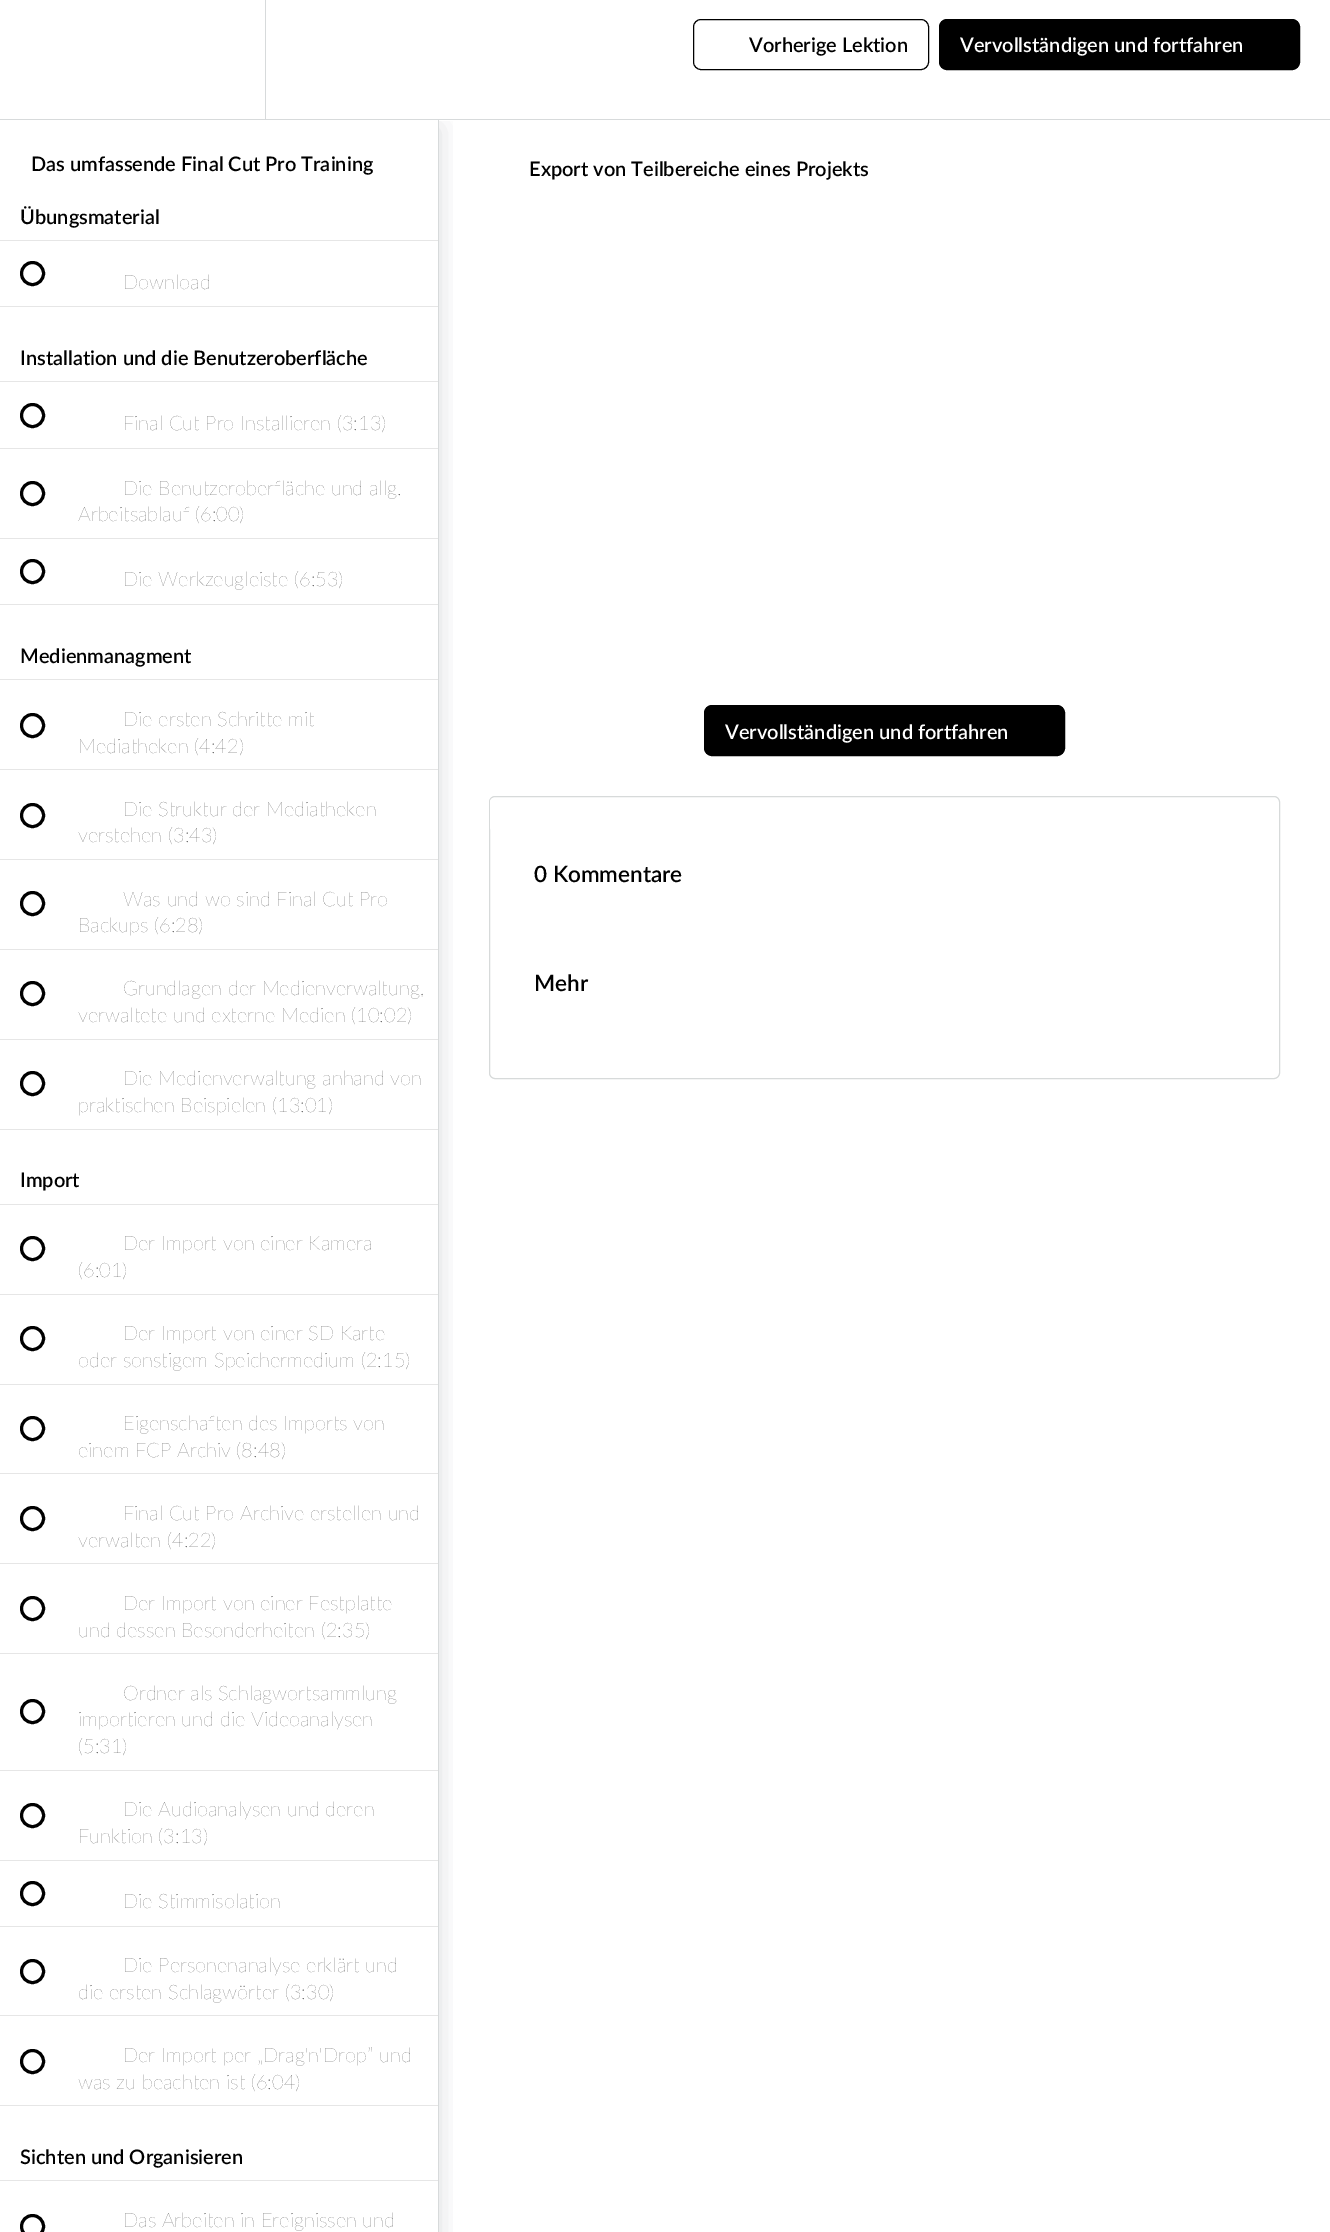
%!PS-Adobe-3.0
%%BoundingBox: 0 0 1330 2232
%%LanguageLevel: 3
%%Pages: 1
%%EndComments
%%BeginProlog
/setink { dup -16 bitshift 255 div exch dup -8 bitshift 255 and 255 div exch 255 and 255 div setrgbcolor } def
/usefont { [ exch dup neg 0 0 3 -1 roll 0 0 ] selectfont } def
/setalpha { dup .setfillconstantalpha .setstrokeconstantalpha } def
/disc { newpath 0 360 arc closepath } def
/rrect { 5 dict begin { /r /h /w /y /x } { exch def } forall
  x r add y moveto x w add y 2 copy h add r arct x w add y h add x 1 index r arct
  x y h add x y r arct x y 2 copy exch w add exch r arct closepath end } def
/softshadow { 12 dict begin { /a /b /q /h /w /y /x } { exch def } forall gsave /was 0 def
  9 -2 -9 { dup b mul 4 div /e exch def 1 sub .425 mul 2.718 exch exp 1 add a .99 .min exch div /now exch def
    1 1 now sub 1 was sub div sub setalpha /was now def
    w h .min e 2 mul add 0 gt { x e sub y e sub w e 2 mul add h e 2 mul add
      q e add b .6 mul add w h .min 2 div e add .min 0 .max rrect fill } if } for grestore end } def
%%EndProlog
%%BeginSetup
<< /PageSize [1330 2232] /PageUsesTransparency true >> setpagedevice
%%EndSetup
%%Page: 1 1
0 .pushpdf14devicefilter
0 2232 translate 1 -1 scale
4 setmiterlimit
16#FFFFFF setink
0 0 1330 2232 rectfill
gsave
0 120 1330 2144 rectclip
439 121 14 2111 rectclip
16#20272D setink
0 128 439 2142 0 12.5 0.15 softshadow
grestore
16#D7DADB setink
0 119 1330 1 rectfill
265 0 1 119 rectfill
16#000000 setink
693.5 19.5 235 50 7.5 rrect stroke
/Lato-SemiBold 20 usefont
749 52 moveto (Vorherige Lektion) show
939.5 19.5 360 50 7.5 rrect gsave fill grestore
stroke
16#FFFFFF setink
960 52 moveto (Vervollständigen und fortfahren) show
16#D7DADB setink
438 120 1 2112 rectfill
16#000000 setink
31 171 moveto (Das umfassende Final Cut Pro Training) show
16#E6E6E6 setink
0 240 438 1 rectfill
16#000000 setink
20 224 moveto (Übungsmaterial) show
16#E6E6E6 setink
0 306 438 1 rectfill
16#000000 setink
3 setlinewidth
32.5 273.5 11 disc stroke
/Lato-ExtraLight 20 usefont
16#4D4D4D setink
123 289 moveto (Download) show
16#E6E6E6 setink
0 381 438 1 rectfill
/Lato-SemiBold 20 usefont
16#000000 setink
20 365 moveto (Installation und die Benutzeroberfläche) show
16#E6E6E6 setink
0 448 438 1 rectfill
16#000000 setink
32.5 415.5 11 disc stroke
/Lato-ExtraLight 20 usefont
16#4D4D4D setink
123 430 moveto (Final Cut Pro Installieren \(3:13\)) show
16#E6E6E6 setink
0 538 438 1 rectfill
16#000000 setink
32.5 493.5 11 disc stroke
16#4D4D4D setink
123 495 moveto (Die Benutzeroberfläche und allg.) show
78 521 moveto (Arbeitsablauf \(6:00\)) show
16#E6E6E6 setink
0 604 438 1 rectfill
16#000000 setink
32.5 571.5 11 disc stroke
16#4D4D4D setink
123 586 moveto (Die Werkzeugleiste \(6:53\)) show
16#E6E6E6 setink
0 679 438 1 rectfill
/Lato-SemiBold 20 usefont
16#000000 setink
20 663 moveto (Medienmanagment) show
16#E6E6E6 setink
0 769 438 1 rectfill
16#000000 setink
32.5 725.5 11 disc stroke
/Lato-ExtraLight 20 usefont
16#4D4D4D setink
123 726 moveto (Die ersten Schritte mit) show
78 753 moveto (Mediatheken \(4:42\)) show
16#E6E6E6 setink
0 859 438 1 rectfill
16#000000 setink
32.5 815.5 11 disc stroke
16#4D4D4D setink
123 816 moveto (Die Struktur der Mediatheken) show
78 842 moveto (verstehen \(3:43\)) show
16#E6E6E6 setink
0 949 438 1 rectfill
16#000000 setink
32.5 903.5 11 disc stroke
16#4D4D4D setink
123 906 moveto (Was und wo sind Final Cut Pro) show
78 932 moveto (Backups \(6:28\)) show
16#E6E6E6 setink
0 1039 438 1 rectfill
16#000000 setink
32.5 993.5 11 disc stroke
16#4D4D4D setink
123 995 moveto (Grundlagen der Medienverwaltung,) show
78 1022 moveto (verwaltete und externe Medien \(10:02\)) show
16#E6E6E6 setink
0 1129 438 1 rectfill
16#000000 setink
32.5 1083.5 11 disc stroke
16#4D4D4D setink
123 1085 moveto (Die Medienverwaltung anhand von) show
78 1112 moveto (praktischen Beispielen \(13:01\)) show
16#E6E6E6 setink
0 1204 438 1 rectfill
/Lato-SemiBold 20 usefont
16#000000 setink
20 1187 moveto (Import) show
16#E6E6E6 setink
0 1294 438 1 rectfill
16#000000 setink
32.5 1248.5 11 disc stroke
/Lato-ExtraLight 20 usefont
16#4D4D4D setink
123 1250 moveto (Der Import von einer Kamera) show
78 1277 moveto (\(6:01\)) show
16#E6E6E6 setink
0 1384 438 1 rectfill
16#000000 setink
32.5 1338.5 11 disc stroke
16#4D4D4D setink
123 1340 moveto (Der Import von einer SD Karte) show
78 1367 moveto (oder sonstigem Speichermedium \(2:15\)) show
16#E6E6E6 setink
0 1473 438 1 rectfill
16#000000 setink
32.5 1428.5 11 disc stroke
16#4D4D4D setink
123 1430 moveto (Eigenschaften des Imports von) show
78 1457 moveto (einem FCP Archiv \(8:48\)) show
16#E6E6E6 setink
0 1563 438 1 rectfill
16#000000 setink
32.5 1518.5 11 disc stroke
16#4D4D4D setink
123 1520 moveto (Final Cut Pro Archive erstellen und) show
78 1547 moveto (verwalten \(4:22\)) show
16#E6E6E6 setink
0 1653 438 1 rectfill
16#000000 setink
32.5 1608.5 11 disc stroke
16#4D4D4D setink
123 1610 moveto (Der Import von einer Festplatte) show
78 1637 moveto (und dessen Besonderheiten \(2:35\)) show
16#E6E6E6 setink
0 1770 438 1 rectfill
16#000000 setink
32.5 1711.5 11 disc stroke
16#4D4D4D setink
[
    [(Ordner als Schlagwortsammlung) 123 1700]
    [(importieren und die Videoanalysen) 78 1726]
    [(\(5:31\)) 78 1753]
] { aload pop moveto show } forall
16#E6E6E6 setink
0 1860 438 1 rectfill
16#000000 setink
32.5 1815.5 11 disc stroke
16#4D4D4D setink
123 1816 moveto (Die Audioanalysen und deren) show
78 1843 moveto (Funktion \(3:13\)) show
16#E6E6E6 setink
0 1926 438 1 rectfill
16#000000 setink
32.5 1893.5 11 disc stroke
16#4D4D4D setink
123 1908 moveto (Die Stimmisolation) show
16#E6E6E6 setink
0 2015 438 1 rectfill
16#000000 setink
32.5 1971.5 11 disc stroke
16#4D4D4D setink
123 1972 moveto (Die Personenanalyse erklärt und) show
78 1999 moveto (die ersten Schlagwörter \(3:30\)) show
16#E6E6E6 setink
0 2105 438 1 rectfill
16#000000 setink
32.5 2061.5 11 disc stroke
16#4D4D4D setink
123 2062 moveto (Der Import per „Drag'n'Drop” und) show
78 2089 moveto (was zu beachten ist \(6:04\)) show
16#E6E6E6 setink
0 2180 438 1 rectfill
/Lato-SemiBold 20 usefont
16#000000 setink
20 2164 moveto (Sichten und Organisieren) show
32.5 2226.5 11 disc stroke
/Lato-ExtraLight 20 usefont
16#4D4D4D setink
123 2227 moveto (Das Arbeiten in Ereignissen und) show
/Lato-SemiBold 20 usefont
16#000000 setink
529 176 moveto (Export von Teilbereiche eines Projekts) show
704.5 705.5 360 50 7.5 rrect gsave fill grestore
1 setlinewidth
stroke
16#FFFFFF setink
725 739 moveto (Vervollständigen und fortfahren) show
16#D7DADA setink
489.5 796.5 790 282 5.5 rrect stroke
16#FFFFFF setink
490 798 128 33 4 rrect fill
/Lato-SemiBold 22.5 usefont
16#000000 setink
534 882 moveto (0 Kommentare) show
534 991 moveto (Mehr) show
.poppdf14devicefilter showpage
%%EOF
